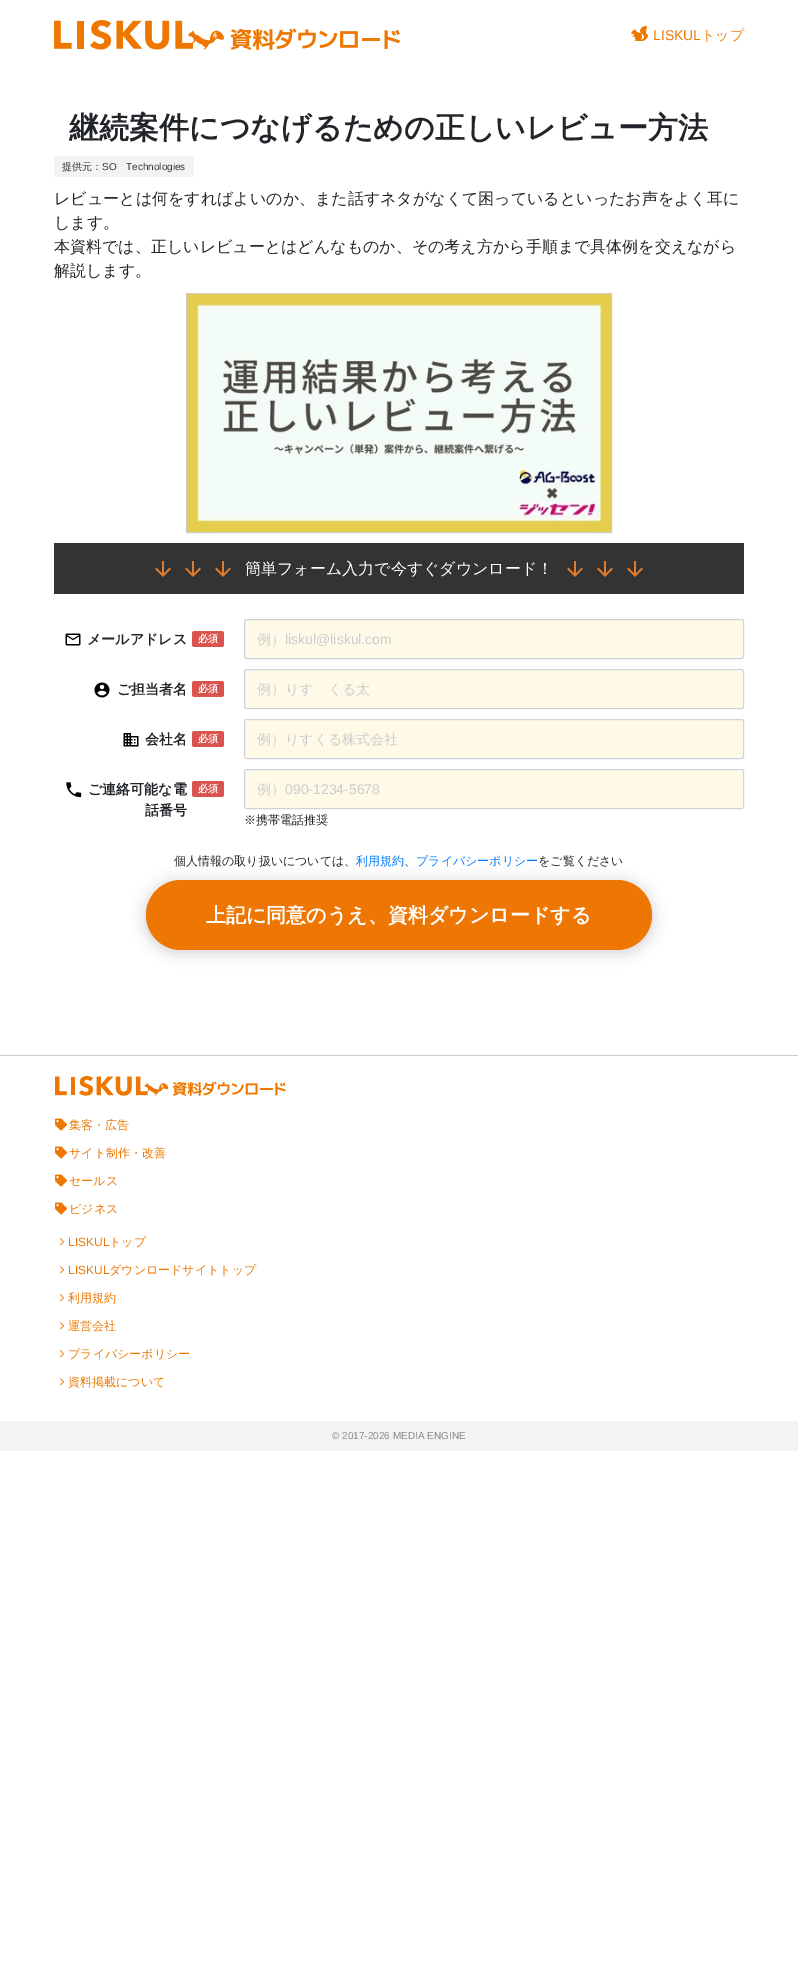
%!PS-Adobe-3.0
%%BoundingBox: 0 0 798 1972
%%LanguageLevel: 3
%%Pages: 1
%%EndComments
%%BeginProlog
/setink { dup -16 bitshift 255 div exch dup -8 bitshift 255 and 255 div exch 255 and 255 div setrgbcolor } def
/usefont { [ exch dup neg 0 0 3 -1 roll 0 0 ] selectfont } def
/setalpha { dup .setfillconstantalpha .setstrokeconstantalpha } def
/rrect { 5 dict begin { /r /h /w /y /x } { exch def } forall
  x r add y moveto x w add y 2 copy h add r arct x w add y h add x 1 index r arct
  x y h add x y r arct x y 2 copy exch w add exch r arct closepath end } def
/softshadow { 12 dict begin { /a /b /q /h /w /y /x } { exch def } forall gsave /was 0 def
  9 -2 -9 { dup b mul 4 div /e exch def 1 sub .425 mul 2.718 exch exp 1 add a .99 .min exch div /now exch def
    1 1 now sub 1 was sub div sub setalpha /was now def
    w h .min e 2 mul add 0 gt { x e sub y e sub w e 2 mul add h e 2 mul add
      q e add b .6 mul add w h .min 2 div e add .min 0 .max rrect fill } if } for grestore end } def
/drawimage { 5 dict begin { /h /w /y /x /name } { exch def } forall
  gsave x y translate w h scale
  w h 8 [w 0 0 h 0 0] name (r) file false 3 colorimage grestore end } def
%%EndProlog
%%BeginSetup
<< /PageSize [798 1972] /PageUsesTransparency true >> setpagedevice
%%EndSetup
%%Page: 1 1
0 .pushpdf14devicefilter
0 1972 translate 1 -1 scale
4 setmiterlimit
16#FFFFFF setink
0 0 798 1972 rectfill
(img1.raw) 54 20 346 30 drawimage
(img2.raw) 631 26 17 15 drawimage
/LiberationSans-Regular 14 usefont
16#ED7700 setink
653 40 moveto (LISKUL) show
/WenQuanYiZenHei-Medium 14 usefont
701 40 moveto (トップ) show
/WenQuanYiZenHei-Bold 30 usefont
16#212529 setink
69 138 moveto (継続案件につなげるための正しいレビュー方法) show
16#F3F3F3 setink
54 156 140 21 rectfill
/WenQuanYiZenHei-Medium 10 usefont
16#333333 setink
62 170 moveto (提供元：) show
/LiberationSans-Regular 10 usefont
102 170 moveto (SO) show
126 170 moveto (Technologies) show
/WenQuanYiZenHei-Medium 16 usefont
16#212529 setink
[
    [(レビューとは何をすればよいのか、また話すネタがなくて困っているといったお声をよく耳に) 54 204]
    [(します。) 54 228]
    [(本資料では、正しいレビューとはどんなものか、その考え方から手順まで具体例を交えながら) 54 252]
    [(解説します。) 54 276]
] { aload pop moveto show } forall
16#CCCCCC setink
186.5 293.5 425 239 rectstroke
(img3.raw) 187 294 424 238 drawimage
16#333333 setink
54 543 690 51 rectfill
(img4.raw) 155 561 16 16 drawimage
(img4.raw) 185 561 16 16 drawimage
(img4.raw) 215 561 16 16 drawimage
16#FFFFFF setink
245 574 moveto (簡単フォーム入力で今すぐダウンロード！) show
(img4.raw) 567 561 16 16 drawimage
(img4.raw) 597 561 16 16 drawimage
(img4.raw) 627 561 16 16 drawimage
(img5.raw) 65 633 16 13 drawimage
/WenQuanYiZenHei-Bold 14 usefont
16#212529 setink
87 644 moveto (メールアドレス) show
16#D9534F setink
192 631 32 16 2.5 rrect fill
/WenQuanYiZenHei-Bold 10 usefont
16#FFFFFF setink
198 642 moveto (必須) show
16#FFFAE7 setink
244.5 619.5 499 39 2 rrect gsave fill grestore
16#CED4DA setink
stroke
/WenQuanYiZenHei-Medium 14 usefont
16#CCCCCC setink
257 644 moveto (例）) show
/LiberationSans-Regular 14 usefont
285 644 moveto (liskul@liskul.com) show
(img6.raw) 94 682 16 16 drawimage
/WenQuanYiZenHei-Bold 14 usefont
16#212529 setink
117 694 moveto (ご担当者名) show
16#D9534F setink
192 681 32 16 2.5 rrect fill
/WenQuanYiZenHei-Bold 10 usefont
16#FFFFFF setink
198 692 moveto (必須) show
16#FFFAE7 setink
244.5 669.5 499 39 2 rrect gsave fill grestore
16#CED4DA setink
stroke
/WenQuanYiZenHei-Medium 14 usefont
16#CCCCCC setink
257 694 moveto (例）りす　くる太) show
(img7.raw) 123 733 16 14 drawimage
/WenQuanYiZenHei-Bold 14 usefont
16#212529 setink
145 744 moveto (会社名) show
16#D9534F setink
192 731 32 16 2.5 rrect fill
/WenQuanYiZenHei-Bold 10 usefont
16#FFFFFF setink
198 742 moveto (必須) show
16#FFFAE7 setink
244.5 719.5 499 39 2 rrect gsave fill grestore
16#CED4DA setink
stroke
/WenQuanYiZenHei-Medium 14 usefont
16#CCCCCC setink
257 744 moveto (例）りすくる株式会社) show
(img8.raw) 66 782 16 16 drawimage
/WenQuanYiZenHei-Bold 14 usefont
16#212529 setink
88 794 moveto (ご連絡可能な電) show
145 815 moveto (話番号) show
16#D9534F setink
192 781 32 16 2.5 rrect fill
/WenQuanYiZenHei-Bold 10 usefont
16#FFFFFF setink
198 792 moveto (必須) show
16#FFFAE7 setink
244.5 769.5 499 39 2 rrect gsave fill grestore
16#CED4DA setink
stroke
/WenQuanYiZenHei-Medium 14 usefont
16#CCCCCC setink
257 794 moveto (例）) show
/LiberationSans-Regular 14 usefont
285 794 moveto (090-1234-5678) show
/WenQuanYiZenHei-Medium 12 usefont
16#212529 setink
244 824 moveto (※携帯電話推奨) show
174 865 moveto (個人情報の取り扱いについては、) show
16#007BFF setink
356 865 moveto (利用規約) show
16#212529 setink
404 865 moveto (、) show
16#007BFF setink
416 865 moveto (プライバシーポリシー) show
16#212529 setink
538 865 moveto (をご覧ください) show
16#000000 setink
146 882 506 70 35 7.5 0.2 softshadow
16#EE7602 setink
146 880 506 70 35 rrect fill
/WenQuanYiZenHei-Bold 20 usefont
16#FFFFFF setink
206 922 moveto (上記に同意のうえ、資料ダウンロードする) show
16#CCCCCC setink
0 1055 798 1 rectfill
(img9.raw) 55 1076 231 20 drawimage
(img10.raw) 55 1118 12 13 drawimage
/WenQuanYiZenHei-Medium 12 usefont
16#ED7700 setink
69 1129 moveto (集客・広告) show
(img10.raw) 55 1146 12 13 drawimage
69 1157 moveto (サイト制作・改善) show
(img10.raw) 55 1174 12 13 drawimage
69 1185 moveto (セールス) show
(img10.raw) 55 1202 12 13 drawimage
69 1213 moveto (ビジネス) show
(img11.raw) 60 1238 5 8 drawimage
/LiberationSans-Regular 12 usefont
68 1246 moveto (LISKUL) show
/WenQuanYiZenHei-Medium 12 usefont
109 1246 moveto (トップ) show
(img11.raw) 60 1266 5 8 drawimage
/LiberationSans-Regular 12 usefont
68 1274 moveto (LISKUL) show
/WenQuanYiZenHei-Medium 12 usefont
109 1274 moveto (ダウンロードサイトトップ) show
(img11.raw) 60 1294 5 8 drawimage
68 1302 moveto (利用規約) show
(img11.raw) 60 1322 5 8 drawimage
68 1330 moveto (運営会社) show
(img11.raw) 60 1350 5 8 drawimage
68 1358 moveto (プライバシーポリシー) show
(img11.raw) 60 1378 5 8 drawimage
68 1386 moveto (資料掲載について) show
16#F3F3F3 setink
0 1421 798 30 rectfill
/LiberationSans-Regular 10 usefont
16#888888 setink
332 1439 moveto (© 2017-2026 MEDIA ENGINE) show
.poppdf14devicefilter showpage
%%EOF
